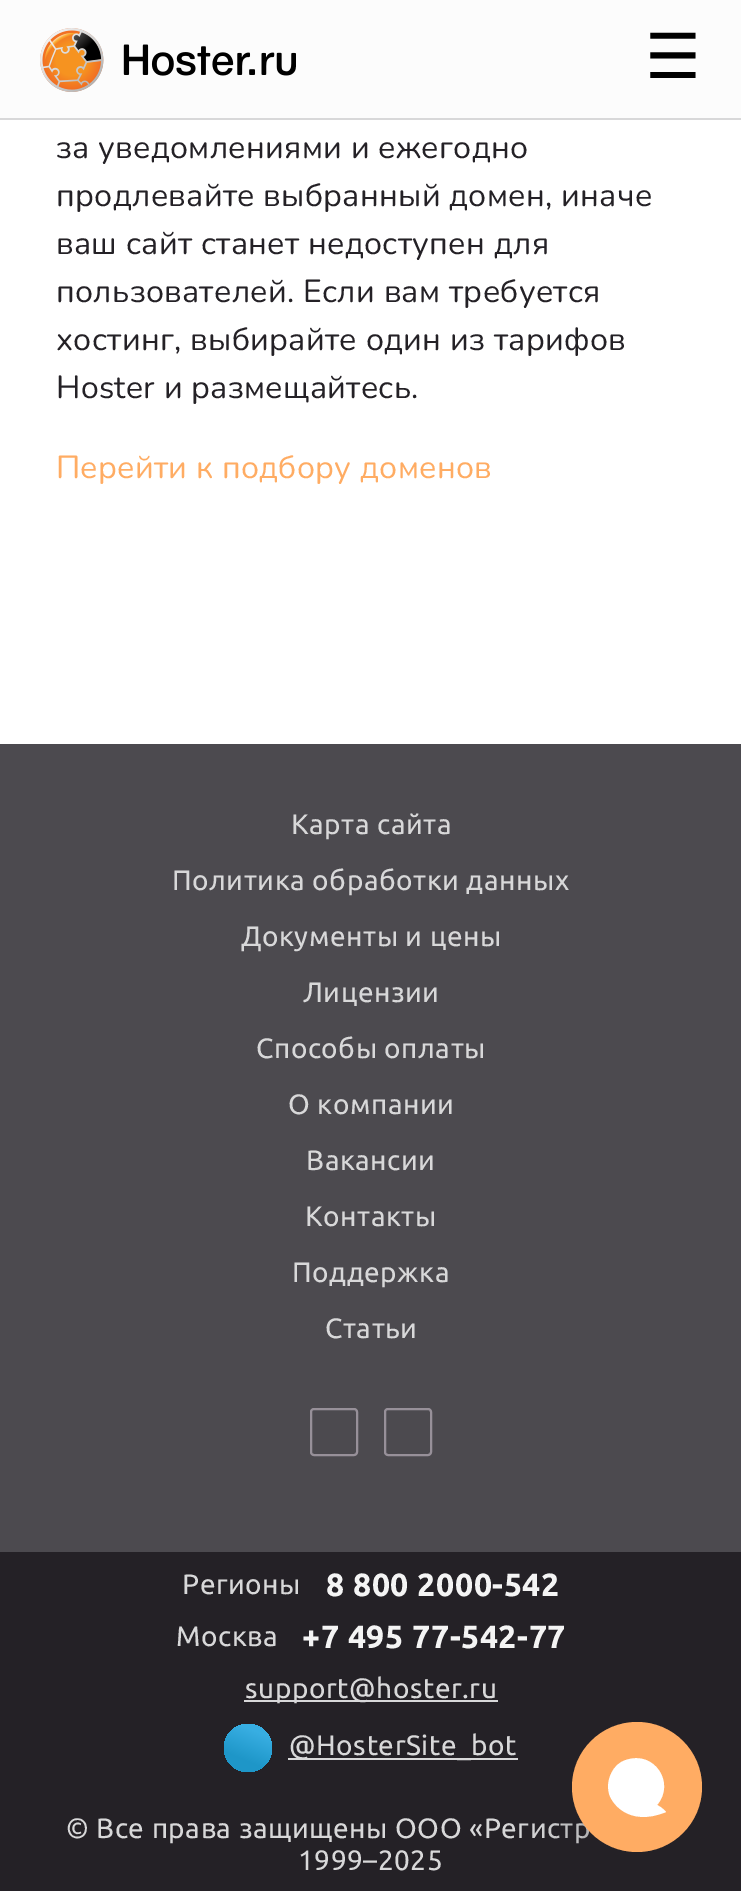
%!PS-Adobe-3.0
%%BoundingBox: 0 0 741 1891
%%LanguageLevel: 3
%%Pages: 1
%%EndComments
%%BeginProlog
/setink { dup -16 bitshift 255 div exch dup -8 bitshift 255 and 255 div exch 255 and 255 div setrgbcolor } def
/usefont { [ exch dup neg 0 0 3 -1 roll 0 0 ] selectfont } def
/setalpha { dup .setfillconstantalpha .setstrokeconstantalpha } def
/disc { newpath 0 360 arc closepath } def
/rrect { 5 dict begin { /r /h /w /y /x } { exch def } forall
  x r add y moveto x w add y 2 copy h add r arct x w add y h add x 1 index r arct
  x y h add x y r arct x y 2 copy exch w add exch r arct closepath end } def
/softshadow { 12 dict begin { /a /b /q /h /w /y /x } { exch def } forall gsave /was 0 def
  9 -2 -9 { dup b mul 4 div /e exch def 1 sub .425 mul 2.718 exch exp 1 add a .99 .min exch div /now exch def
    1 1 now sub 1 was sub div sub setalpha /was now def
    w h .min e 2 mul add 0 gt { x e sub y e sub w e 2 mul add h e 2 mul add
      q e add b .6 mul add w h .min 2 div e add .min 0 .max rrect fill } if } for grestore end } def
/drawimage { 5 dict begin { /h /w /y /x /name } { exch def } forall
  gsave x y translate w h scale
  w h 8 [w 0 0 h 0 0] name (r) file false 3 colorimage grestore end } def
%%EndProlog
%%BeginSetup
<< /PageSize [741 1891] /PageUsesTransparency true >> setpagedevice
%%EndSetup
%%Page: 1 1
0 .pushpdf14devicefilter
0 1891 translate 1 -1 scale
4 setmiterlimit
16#FFFFFF setink
0 0 741 1891 rectfill
16#FCFCFC setink
0 0 741 118 rectfill
16#D8D8D9 setink
0 118 741 2 rectfill
(img1.raw) 40 28 256 64 drawimage
/DejaVuSans-Regular 62 usefont
16#000000 setink
645 78 moveto (☰) show
/Nunito-Regular 32 usefont
16#242126 setink
56 158 moveto 0.3 0 (за уведомлениями и ежегодно) ashow
56 206 moveto 0.3 0 (продлевайте выбранный домен, иначе) ashow
56 254 moveto 0.3 0 (ваш сайт станет недоступен для) ashow
56 302 moveto 0.3 0 (пользователей. Если вам требуется) ashow
56 350 moveto 0.3 0 (хостинг, выбирайте один из тарифов) ashow
56 398 moveto 0.3 0 (Hoster и размещайтесь.) ashow
16#FFAC63 setink
56 478 moveto 0.3 0 (Перейти к подбору доменов) ashow
16#4C4A4F setink
0 744 741 808 rectfill
/Ubuntu-Regular 28 usefont
16#D8D8D9 setink
291 834 moveto 0.55 0 (Карта сайта) ashow
172 890 moveto 0.55 0 (Политика обработки данных) ashow
241 946 moveto 0.55 0 (Документы и цены) ashow
303 1002 moveto 0.55 0 (Лицензии) ashow
256 1058 moveto 0.55 0 (Способы оплаты) ashow
288 1114 moveto 0.55 0 (О компании) ashow
306 1170 moveto 0.55 0 (Вакансии) ashow
305 1226 moveto 0.55 0 (Контакты) ashow
292 1282 moveto 0.55 0 (Поддержка) ashow
325 1338 moveto 0.55 0 (Статьи) ashow
16#979099 setink
2 setlinewidth
311 1409 46 46 3 rrect stroke
385 1409 46 46 3 rrect stroke
16#242126 setink
0 1552 741 339 rectfill
16#D8D8D9 setink
182 1594 moveto 0.55 0 (Регионы) ashow
/Ubuntu-Bold 32 usefont
16#F4F4F4 setink
326 1596 moveto 0.55 0 (8 800 2000-542) ashow
/Ubuntu-Regular 28 usefont
16#D8D8D9 setink
176 1646 moveto 0.55 0 (Москва) ashow
/Ubuntu-Bold 32 usefont
16#F4F4F4 setink
302 1648 moveto 0.55 0 (+7 495 77-542-77) ashow
16#D8D8D9 setink
244 1700 254 2 rectfill
/Ubuntu-Regular 28 usefont
245 1698 moveto 0.55 0 (support@hoster.ru) ashow
gsave 248 1748 24 disc clip newpath
<< /ShadingType 2 /ColorSpace /DeviceRGB /Coords [260 1719 236 1777] /Extend [true true] /Function << /FunctionType 3 /Domain [0 1] /Functions [<< /FunctionType 2 /Domain [0 1] /C0 [0.216 0.682 0.886] /C1 [0.216 0.682 0.886] /N 1 >> << /FunctionType 2 /Domain [0 1] /C0 [0.216 0.682 0.886] /C1 [0.118 0.588 0.784] /N 1 >> << /FunctionType 2 /Domain [0 1] /C0 [0.118 0.588 0.784] /C1 [0.118 0.588 0.784] /N 1 >>] /Bounds [0.22 0.7] /Encode [0 1 0 1 0 1] >> >> shfill grestore
288 1758 230 2 rectfill
289 1755 moveto 0.55 0 (@HosterSite_bot) ashow
66 1838 moveto 0.55 0 (© Все права защищены ООО «Регистр) ashow
298 1870 moveto 0.55 0 (1999–2025) ashow
16#22242B setink
572 1760 130 130 65 38 0.3 softshadow
16#FFAC63 setink
637 1787 65 disc fill
16#FFFFFF setink
612 1800 moveto 612 1800 627 1828 666 1812 curveto 666 1812 663 1808 657 1805 curveto 676 1783 654 1750 626 1760 curveto 619 1762 614 1767 611 1774 curveto 607 1782 607 1793 612 1800 curveto closepath eofill
.poppdf14devicefilter showpage
%%EOF
